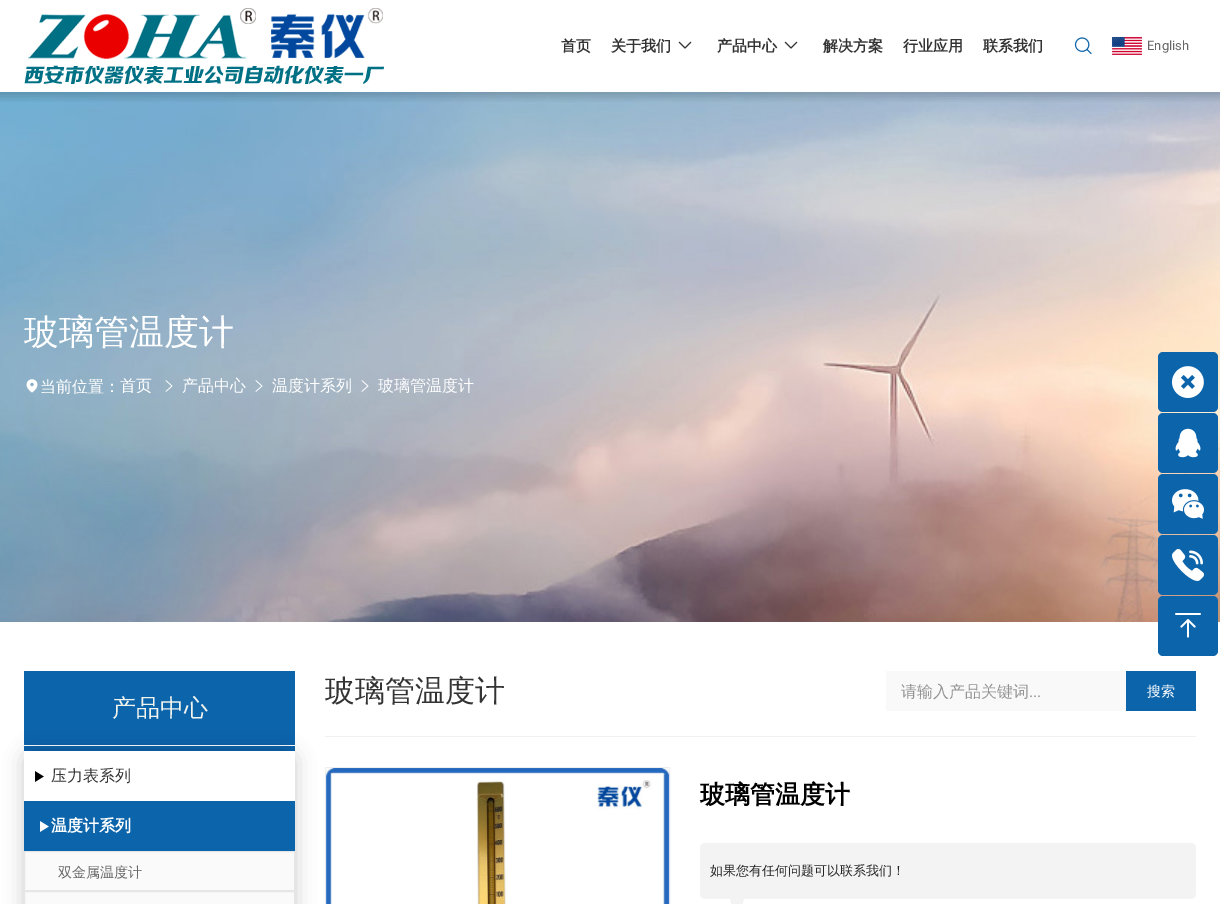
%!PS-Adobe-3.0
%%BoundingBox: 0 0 1220 904
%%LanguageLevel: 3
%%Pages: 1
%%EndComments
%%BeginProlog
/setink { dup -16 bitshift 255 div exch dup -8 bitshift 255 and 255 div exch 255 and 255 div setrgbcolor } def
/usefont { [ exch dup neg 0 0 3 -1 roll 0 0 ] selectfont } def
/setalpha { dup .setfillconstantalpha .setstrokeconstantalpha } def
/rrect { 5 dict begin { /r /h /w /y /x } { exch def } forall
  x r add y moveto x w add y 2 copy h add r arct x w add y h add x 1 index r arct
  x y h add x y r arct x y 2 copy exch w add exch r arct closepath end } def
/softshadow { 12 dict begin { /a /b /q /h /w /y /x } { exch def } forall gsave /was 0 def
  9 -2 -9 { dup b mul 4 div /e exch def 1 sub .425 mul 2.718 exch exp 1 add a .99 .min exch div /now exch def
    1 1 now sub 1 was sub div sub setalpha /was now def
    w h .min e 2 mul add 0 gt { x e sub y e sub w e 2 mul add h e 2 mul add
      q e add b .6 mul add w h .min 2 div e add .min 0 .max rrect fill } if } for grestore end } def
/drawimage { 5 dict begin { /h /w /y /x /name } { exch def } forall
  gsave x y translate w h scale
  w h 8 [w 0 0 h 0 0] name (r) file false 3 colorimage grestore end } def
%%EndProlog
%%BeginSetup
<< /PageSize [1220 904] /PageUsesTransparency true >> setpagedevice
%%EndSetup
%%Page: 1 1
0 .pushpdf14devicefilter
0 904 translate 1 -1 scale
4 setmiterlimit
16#FFFFFF setink
0 0 1220 904 rectfill
(img5.raw) 0 92 1220 530 drawimage
gsave
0 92 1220 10 rectclip
16#000000 setink
-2 0 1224 96 0 5 0.2 softshadow
grestore
(img1.raw) 24 8 360 76 drawimage
/WenQuanYiZenHei-Bold 15 usefont
16#333333 setink
561 51 moveto (首页) show
611 51 moveto (关于我们) show
(img2.raw) 678 41 14 8 drawimage
717 51 moveto (产品中心) show
(img2.raw) 784 41 14 8 drawimage
[
    [(解决方案) 823 51]
    [(行业应用) 903 51]
    [(联系我们) 983 51]
] { aload pop moveto show } forall
(img3.raw) 1074 37 18 18 drawimage
(img4.raw) 1111 36 31 19 drawimage
/Roboto-Regular 13 usefont
16#666666 setink
1147 50 moveto (English) show
/WenQuanYiZenHei-Medium 35 usefont
16#FFFFFF setink
24 344 moveto (玻璃管温度计) show
(img6.raw) 26 379 12 14 drawimage
/WenQuanYiZenHei-Medium 16 usefont
40 392 moveto (当前位置：) show
120 391 moveto (首页) show
(img7.raw) 165 380 8 12 drawimage
182 391 moveto (产品中心) show
(img8.raw) 255 380 8 12 drawimage
272 391 moveto (温度计系列) show
(img9.raw) 361 380 8 12 drawimage
378 391 moveto (玻璃管温度计) show
16#0C64AB setink
24 671 271 80 rectfill
16#FFFFFF setink
24 745 271 1 rectfill
/WenQuanYiZenHei-Medium 24 usefont
16#F1F3EF setink
112 716 moveto (产品中心) show
16#000000 setink
24 751 271 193 10 10 0.2 softshadow
16#FFFFFF setink
24 751 271 50 rectfill
(img10.raw) 35 771 9 11 drawimage
/WenQuanYiZenHei-Medium 16 usefont
16#333333 setink
51 781 moveto (压力表系列) show
16#0C64AB setink
24 801 271 50 rectfill
(img11.raw) 40 821 9 11 drawimage
/WenQuanYiZenHei-Bold 16 usefont
16#FFFFFF setink
51 831 moveto (温度计系列) show
16#FAFAFA setink
25 852 269 52 rectfill
16#E6E6E6 setink
24.5 851.5 270 39 rectstroke
/WenQuanYiZenHei-Medium 14 usefont
16#666666 setink
58 877 moveto (双金属温度计) show
16#E6E6E6 setink
24.5 891.5 270 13 rectstroke
16#F0F0F0 setink
325 736 871 1 rectfill
/WenQuanYiZenHei-Medium 30 usefont
16#333333 setink
325 701 moveto (玻璃管温度计) show
16#F9F9F9 setink
886 671 240 40 rectfill
/WenQuanYiZenHei-Medium 16 usefont
16#949494 setink
901 697 moveto (请输入产品关键词) show
/Roboto-Regular 16 usefont
1029 697 moveto (...) show
16#0C64AB setink
1126 671 70 40 rectfill
/WenQuanYiZenHei-Medium 14 usefont
16#FFFFFF setink
1147 696 moveto (搜索) show
16#EEEEEE setink
325.5 767.5 344 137 rectstroke
(img12.raw) 325 768 345 136 drawimage
/WenQuanYiZenHei-Bold 25 usefont
16#000000 setink
700 803 moveto (玻璃管温度计) show
16#F3F3F3 setink
700 843 496 56 5 rrect fill
/WenQuanYiZenHei-Medium 13 usefont
16#252525 setink
710 875 moveto (如果您有任何问题可以联系我们！) show
16#F3F3F3 setink
730 899 moveto 744 899 lineto 737 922 lineto closepath fill
16#0C64AB setink
1158 352 60 60 5 rrect fill
(img13.raw) 1172 366 32 32 drawimage
1158 413 60 60 5 rrect fill
(img14.raw) 1175 428 26 30 drawimage
1158 474 60 60 5 rrect fill
(img15.raw) 1172 489 32 30 drawimage
1158 535 60 60 5 rrect fill
(img16.raw) 1172 549 32 32 drawimage
1158 596 60 60 5 rrect fill
(img17.raw) 1175 613 26 25 drawimage
.poppdf14devicefilter showpage
%%EOF
